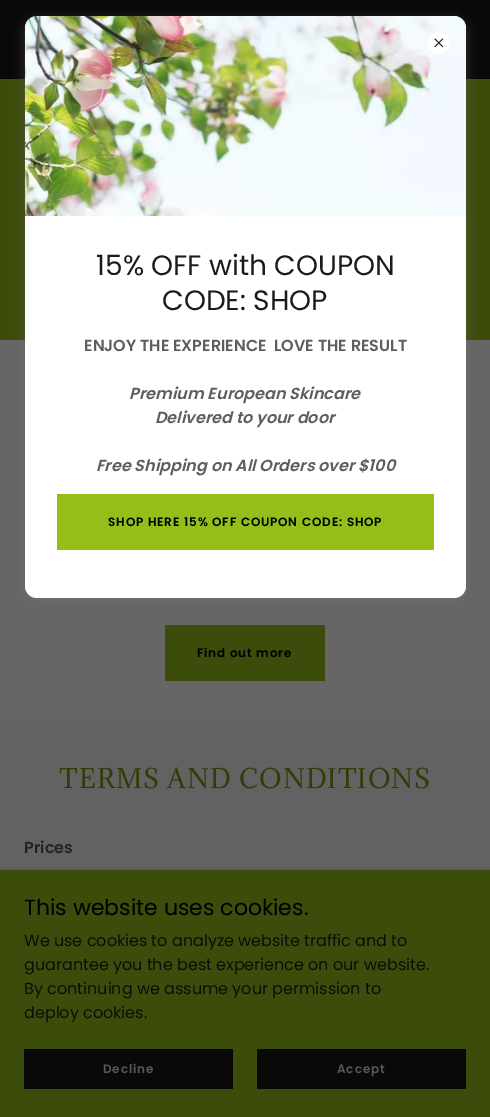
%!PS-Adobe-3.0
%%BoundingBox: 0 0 490 1117
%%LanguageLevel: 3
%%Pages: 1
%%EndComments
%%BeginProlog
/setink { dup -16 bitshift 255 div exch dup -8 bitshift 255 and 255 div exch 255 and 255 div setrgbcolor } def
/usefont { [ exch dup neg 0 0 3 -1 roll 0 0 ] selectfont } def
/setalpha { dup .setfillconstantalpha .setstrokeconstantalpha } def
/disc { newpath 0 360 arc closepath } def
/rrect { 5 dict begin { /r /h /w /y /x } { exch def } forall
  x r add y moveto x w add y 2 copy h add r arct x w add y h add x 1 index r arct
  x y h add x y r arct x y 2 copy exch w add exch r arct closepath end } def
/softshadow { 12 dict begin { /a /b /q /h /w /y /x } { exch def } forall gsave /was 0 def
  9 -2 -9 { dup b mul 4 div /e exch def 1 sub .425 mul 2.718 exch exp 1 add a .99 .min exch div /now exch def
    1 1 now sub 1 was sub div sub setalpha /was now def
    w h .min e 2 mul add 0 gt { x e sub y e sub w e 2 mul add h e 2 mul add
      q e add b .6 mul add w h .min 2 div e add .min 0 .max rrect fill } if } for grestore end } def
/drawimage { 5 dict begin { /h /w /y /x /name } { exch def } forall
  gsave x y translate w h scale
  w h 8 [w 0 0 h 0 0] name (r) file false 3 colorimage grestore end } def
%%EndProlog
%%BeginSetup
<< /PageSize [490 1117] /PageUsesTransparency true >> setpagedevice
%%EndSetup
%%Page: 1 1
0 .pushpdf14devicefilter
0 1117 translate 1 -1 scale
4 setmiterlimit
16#3B4C0B setink
0 0 490 1117 rectfill
16#090909 setink
0 0 490 79 rectfill
16#666666 setink
0 340 490 381 rectfill
16#757575 setink
25 20 441 582 12 6 0.4 softshadow
16#FFFFFF setink
25 16 441 582 12 rrect fill
(img2.raw) 25 16 441 200 drawimage
439 43 11 disc fill
(img1.raw) 434 38 10 10 drawimage
/Poppins-Regular 28 usefont
16#1B1B1B setink
96 275 moveto (15% OFF with COUPON) show
162 310 moveto (CODE: SHOP) show
/Poppins-SemiBold 16 usefont
16#5E5E5E setink
84 351 moveto (ENJOY THE EXPERIENCE  LOVE THE RESULT) show
/Poppins-SemiBoldItalic 16 usefont
[
    [(Premium European Skincare) 129 399]
    [(Delivered to your door) 155 423]
    [(Free Shipping on All Orders over $100) 96 471]
] { aload pop moveto show } forall
16#94BF1B setink
57 494 377 56 rectfill
/Poppins-SemiBold 12 usefont
16#000000 setink
108 526 moveto 0.85 0 (SHOP HERE 15% OFF COUPON CODE: SHOP) ashow
16#3B4C0B setink
165 625 160 56 rectfill
16#000000 setink
197 657 moveto 0.85 0 (Find out more) ashow
16#626262 setink
0 721 490 149 rectfill
/Adamina-Regular 25 usefont
16#303D08 setink
59 788 moveto 1 0 (TERMS AND CONDITIONS) ashow
/Poppins-SemiBold 16 usefont
16#232323 setink
24 853 moveto (Prices) show
16#000000 setink
0 872 490 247 0 3 0.3 softshadow
16#3B4C0B setink
0 870 490 247 rectfill
/Poppins-Regular 22 usefont
16#000000 setink
24 915 moveto (This website uses cookies.) show
/Poppins-Regular 16 usefont
16#0C0D0B setink
[
    [(We use cookies to analyze website traffic and to) 24 946]
    [(guarantee you the best experience on our website.) 24 970]
    [(By continuing we assume your permission to) 24 994]
    [(deploy cookies.) 24 1018]
] { aload pop moveto show } forall
16#090909 setink
24 1049 209 40 rectfill
/Poppins-SemiBold 12 usefont
16#585858 setink
103 1073 moveto 0.85 0 (Decline) ashow
16#090909 setink
257 1049 209 40 rectfill
16#585858 setink
337 1073 moveto 0.85 0 (Accept) ashow
.poppdf14devicefilter showpage
%%EOF
